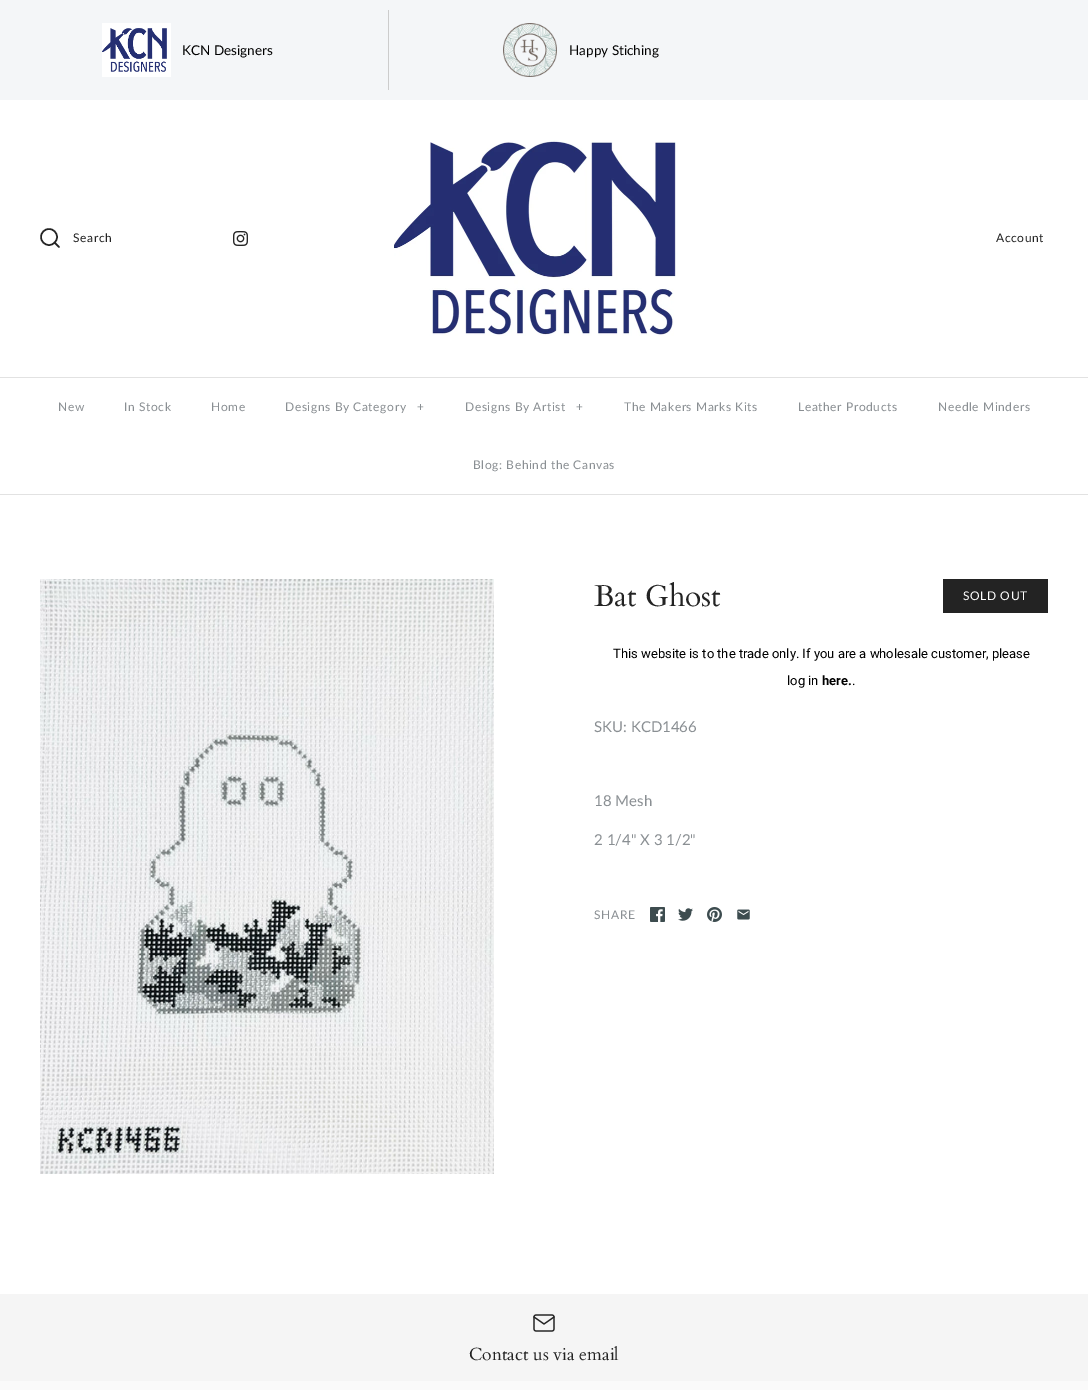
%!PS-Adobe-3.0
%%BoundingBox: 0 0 1088 1390
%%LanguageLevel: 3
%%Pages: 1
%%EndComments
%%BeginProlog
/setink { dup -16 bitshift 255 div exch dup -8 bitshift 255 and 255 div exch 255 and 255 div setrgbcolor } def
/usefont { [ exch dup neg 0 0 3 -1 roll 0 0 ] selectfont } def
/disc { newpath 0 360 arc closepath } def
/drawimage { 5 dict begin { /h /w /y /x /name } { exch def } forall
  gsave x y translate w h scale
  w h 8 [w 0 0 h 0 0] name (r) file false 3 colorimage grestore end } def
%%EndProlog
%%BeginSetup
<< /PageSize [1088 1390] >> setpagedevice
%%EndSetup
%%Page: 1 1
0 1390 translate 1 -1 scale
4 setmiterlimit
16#FFFFFF setink
0 0 1088 1390 rectfill
16#F4F6F8 setink
0 0 1088 100 rectfill
(img1.raw) 102 23 69 54 drawimage
/Lato-Regular 13.5 usefont
16#000000 setink
182 55 moveto (KCN Designers) show
16#CCCCCC setink
388 10 1 80 rectfill
(img2.raw) 503 23 54 54 drawimage
16#000000 setink
569 55 moveto (Happy Stiching) show
(img3.raw) 394 140 284 196 drawimage
16#232323 setink
1.5 setlinewidth
49 237 8 disc stroke
1 setlinecap
1 setlinejoin
59 247 moveto 54.5 242.5 lineto stroke
/Lato-Regular 12 usefont
73 242 moveto 0.6 0 (Search) ashow
(img4.raw) 233 231 15 15 drawimage
996 242 moveto 0.6 0 (Account) ashow
16#E2E2E2 setink
0 494 1088 1 rectfill
0 377 1088 1 rectfill
16#8A8F93 setink
58 411 moveto 0.6 0 (New) ashow
124 411 moveto 0.6 0 (In Stock) ashow
211 411 moveto 0.6 0 (Home) ashow
285 411 moveto 0.6 0 (Designs By Category) ashow
417 411 moveto 0.6 0 (+) ashow
465 411 moveto 0.6 0 (Designs By Artist) ashow
576 411 moveto 0.6 0 (+) ashow
624 411 moveto 0.6 0 (The Makers Marks Kits) ashow
798 411 moveto 0.6 0 (Leather Products) ashow
938 411 moveto 0.6 0 (Needle Minders) ashow
473 469 moveto 0.6 0 (Blog: Behind the Canvas) ashow
(img5.raw) 40 579 454 595 drawimage
/Cardo-Regular 30 usefont
16#232323 setink
594 606 moveto (Bat Ghost) show
943 579 105 34 rectfill
/Lato-Regular 12 usefont
16#FFFFFF setink
963 600 moveto 0.6 0 (SOLD OUT) ashow
/Roboto-Regular 13 usefont
16#000000 setink
613 658 moveto (This website is to the trade only. If you are a wholesale customer, please) show
787 685 moveto (log in) show
/Roboto-Bold 13 usefont
822 685 moveto (here.) show
/Roboto-Regular 13 usefont
852 685 moveto (.) show
/Lato-Regular 15 usefont
16#8A8F93 setink
[
    [(SKU: KCD1466) 594 732]
    [(18 Mesh) 594 806]
    [(2 1/4" X 3 1/2") 594 845]
] { aload pop moveto show } forall
/Lato-Regular 12 usefont
594 919 moveto 0.6 0 (SHARE) ashow
(img6.raw) 650 907 15 15 drawimage
(img7.raw) 678 908 15 13 drawimage
(img8.raw) 707 907 15 15 drawimage
(img9.raw) 737 909 13 11 drawimage
16#FAFAFA setink
0 1381 1088 9 rectfill
16#F5F5F5 setink
0 1294 1088 87 rectfill
(img10.raw) 533 1314 22 18 drawimage
/Cardo-Regular 17.5 usefont
16#232323 setink
469 1360 moveto (Contact us via email) show
showpage
%%EOF
